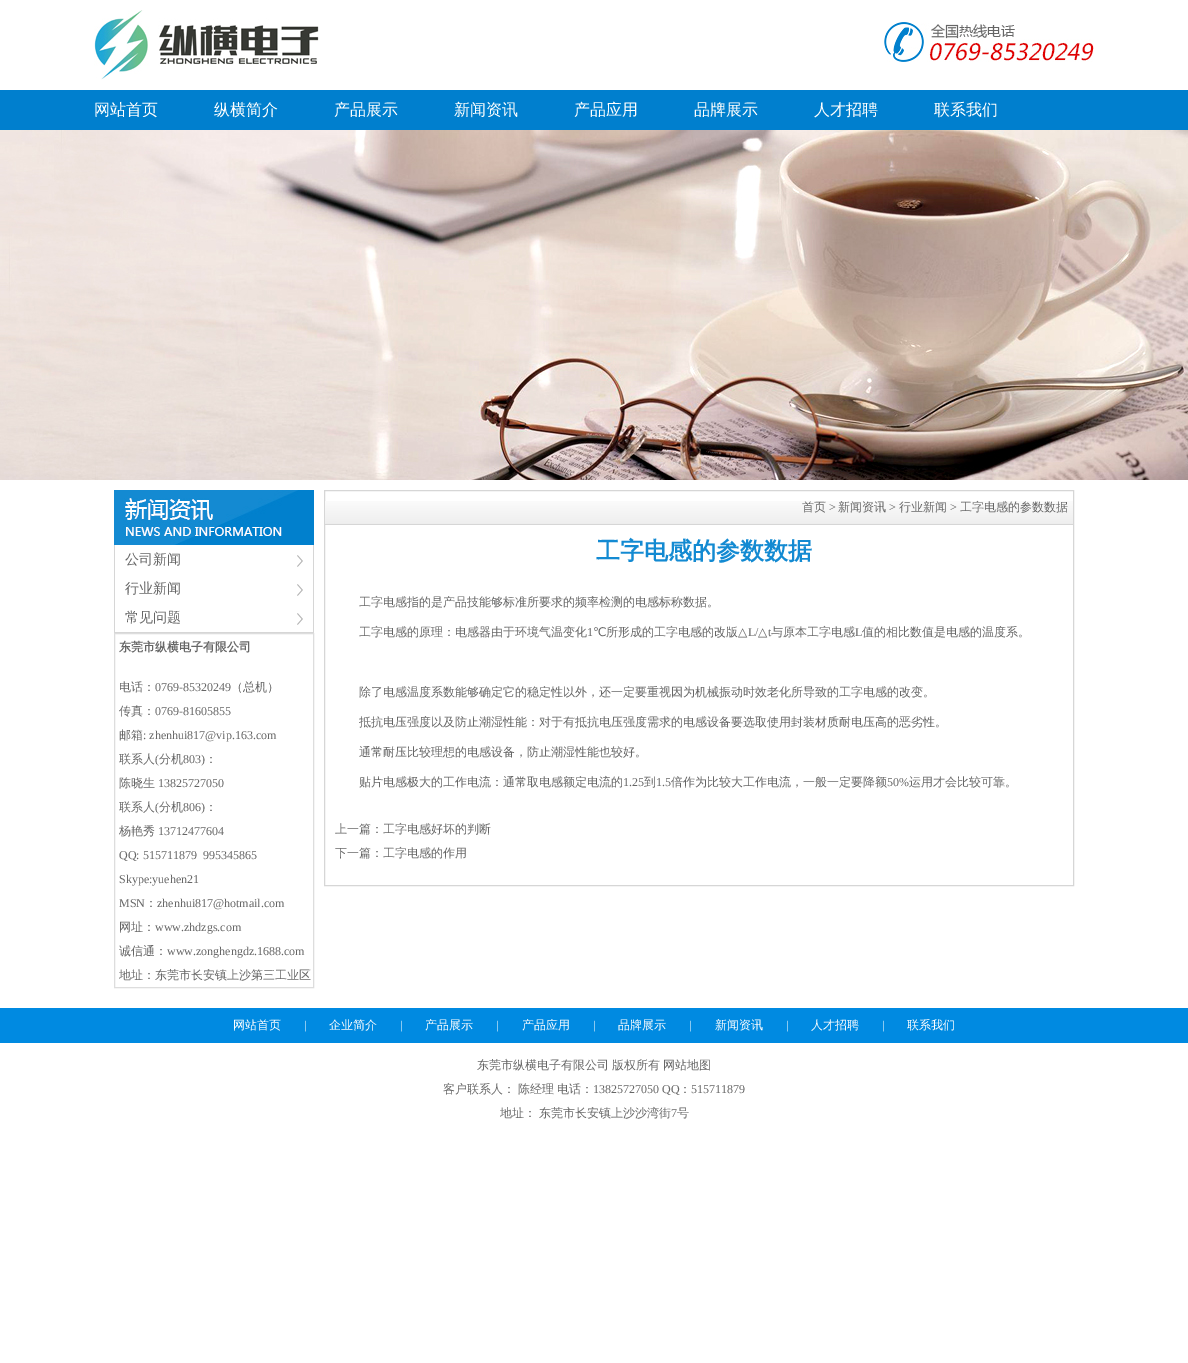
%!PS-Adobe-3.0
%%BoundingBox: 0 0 1188 1363
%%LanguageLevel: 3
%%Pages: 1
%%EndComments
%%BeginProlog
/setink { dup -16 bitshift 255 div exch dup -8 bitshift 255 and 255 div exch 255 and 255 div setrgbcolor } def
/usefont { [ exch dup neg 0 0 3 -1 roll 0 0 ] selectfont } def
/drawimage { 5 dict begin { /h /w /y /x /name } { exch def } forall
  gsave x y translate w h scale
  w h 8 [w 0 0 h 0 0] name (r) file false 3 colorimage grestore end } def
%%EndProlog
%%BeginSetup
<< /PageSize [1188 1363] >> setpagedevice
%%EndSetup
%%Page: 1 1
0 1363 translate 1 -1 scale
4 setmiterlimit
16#FFFFFF setink
0 0 1188 1363 rectfill
(img1.raw) 94 10 225 70 drawimage
(img2.raw) 884 22 210 40 drawimage
16#007FCE setink
0 90 1188 40 rectfill
/WenQuanYiZenHei-Medium 16 usefont
16#FFFFFF setink
[
    [(网站首页) 94 115]
    [(纵横简介) 214 115]
    [(产品展示) 334 115]
    [(新闻资讯) 454 115]
    [(产品应用) 574 115]
    [(品牌展示) 694 115]
    [(人才招聘) 814 115]
    [(联系我们) 934 115]
] { aload pop moveto show } forall
(img3.raw) 0 130 1188 350 drawimage
(img4.raw) 114 490 200 55 drawimage
[
    [313 545 1 88 16#D6D6D6]
    [114 632 200 1 16#D6D6D6]
    [114 545 1 88 16#D6D6D6]
] { aload pop setink rectfill } forall
/WenQuanYiZenHei-Medium 14 usefont
16#666666 setink
125 564 moveto (公司新闻) show
(img5.raw) 297 555 6 12 drawimage
125 593 moveto (行业新闻) show
(img5.raw) 297 584 6 12 drawimage
125 622 moveto (常见问题) show
(img5.raw) 297 613 6 12 drawimage
16#DDDDDD setink
114.5 633.5 199 354 rectstroke
/WenQuanYiZenHei-Bold 12 usefont
16#666666 setink
119 651 moveto (东莞市纵横电子有限公司) show
/WenQuanYiZenHei-Medium 12 usefont
119 691 moveto (电话：) show
/LiberationSerif-Regular 12 usefont
155 691 moveto (0769-85320249) show
/WenQuanYiZenHei-Medium 12 usefont
231 691 moveto (（总机）) show
119 715 moveto (传真：) show
/LiberationSerif-Regular 12 usefont
155 715 moveto (0769-81605855) show
/WenQuanYiZenHei-Medium 12 usefont
119 739 moveto (邮箱) show
/LiberationSerif-Regular 12 usefont
143 739 moveto (: zhenhui817@vip.163.com) show
/WenQuanYiZenHei-Medium 12 usefont
119 763 moveto (联系人) show
/LiberationSerif-Regular 12 usefont
155 763 moveto (\() show
/WenQuanYiZenHei-Medium 12 usefont
159 763 moveto (分机) show
/LiberationSerif-Regular 12 usefont
183 763 moveto (803\)) show
/WenQuanYiZenHei-Medium 12 usefont
205 763 moveto (：) show
119 787 moveto (陈晓生) show
/LiberationSerif-Regular 12 usefont
158 787 moveto (13825727050) show
/WenQuanYiZenHei-Medium 12 usefont
119 811 moveto (联系人) show
/LiberationSerif-Regular 12 usefont
155 811 moveto (\() show
/WenQuanYiZenHei-Medium 12 usefont
159 811 moveto (分机) show
/LiberationSerif-Regular 12 usefont
183 811 moveto (806\)) show
/WenQuanYiZenHei-Medium 12 usefont
205 811 moveto (：) show
119 835 moveto (杨艳秀) show
/LiberationSerif-Regular 12 usefont
[
    [(13712477604) 158 835]
    [(QQ: 515711879  995345865) 119 859]
    [(Skype:yuehen21) 119 883]
    [(MSN) 119 907]
] { aload pop moveto show } forall
/WenQuanYiZenHei-Medium 12 usefont
145 907 moveto (：) show
/LiberationSerif-Regular 12 usefont
157 907 moveto (zhenhui817@hotmail.com) show
/WenQuanYiZenHei-Medium 12 usefont
119 931 moveto (网址：) show
/LiberationSerif-Regular 12 usefont
155 931 moveto (www.zhdzgs.com) show
/WenQuanYiZenHei-Medium 12 usefont
119 955 moveto (诚信通：) show
/LiberationSerif-Regular 12 usefont
167 955 moveto (www.zonghengdz.1688.com) show
/WenQuanYiZenHei-Medium 12 usefont
119 979 moveto (地址：东莞市长安镇上沙第三工业区) show
16#D6D6D6 setink
324.5 490.5 749 395 rectstroke
(img6.raw) 325 501 748 23 drawimage
325 524 748 1 rectfill
16#666666 setink
802 511 moveto (首页) show
/LiberationSerif-Regular 12 usefont
829 511 moveto (>) show
/WenQuanYiZenHei-Medium 12 usefont
838 511 moveto (新闻资讯) show
/LiberationSerif-Regular 12 usefont
889 511 moveto (>) show
/WenQuanYiZenHei-Medium 12 usefont
899 511 moveto (行业新闻) show
/LiberationSerif-Regular 12 usefont
950 511 moveto (>) show
/WenQuanYiZenHei-Medium 12 usefont
960 511 moveto (工字电感的参数数据) show
/WenQuanYiZenHei-Bold 24 usefont
16#138AD2 setink
596 559 moveto (工字电感的参数数据) show
/WenQuanYiZenHei-Medium 12 usefont
16#666666 setink
359 606 moveto (工字电感指的是产品技能够标准所要求的频率检测的电感标称数据。) show
359 636 moveto (工字电感的原理：电感器由于环境气温变化) show
/LiberationSerif-Regular 12 usefont
587 636 moveto (1) show
/DejaVuSans-Regular 12 usefont
593 636 moveto (℃) show
/WenQuanYiZenHei-Medium 12 usefont
606 636 moveto (所形成的工字电感的改版) show
/DejaVuSans-Regular 12 usefont
738 636 moveto (△) show
/LiberationSerif-Regular 12 usefont
748 636 moveto (L/) show
/DejaVuSans-Regular 12 usefont
758 636 moveto (△) show
/LiberationSerif-Regular 12 usefont
768 636 moveto (t) show
/WenQuanYiZenHei-Medium 12 usefont
771 636 moveto (与原本工字电感) show
/LiberationSerif-Regular 12 usefont
855 636 moveto (L) show
/WenQuanYiZenHei-Medium 12 usefont
[
    [(值的相比数值是电感的温度系。) 862 636]
    [(除了电感温度系数能够确定它的稳定性以外，还一定要重视因为机械振动时效老化所导致的工字电感的改变。) 359 696]
    [(抵抗电压强度以及防止潮湿性能：对于有抵抗电压强度需求的电感设备要选取使用封装材质耐电压高的恶劣性。) 359 726]
    [(通常耐压比较理想的电感设备，防止潮湿性能也较好。) 359 756]
    [(贴片电感极大的工作电流：通常取电感额定电流的) 359 786]
] { aload pop moveto show } forall
/LiberationSerif-Regular 12 usefont
623 786 moveto (1.25) show
/WenQuanYiZenHei-Medium 12 usefont
644 786 moveto (到) show
/LiberationSerif-Regular 12 usefont
656 786 moveto (1.5) show
/WenQuanYiZenHei-Medium 12 usefont
671 786 moveto (倍作为比较大工作电流，一般一定要降额) show
/LiberationSerif-Regular 12 usefont
887 786 moveto (50%) show
/WenQuanYiZenHei-Medium 12 usefont
[
    [(运用才会比较可靠。) 909 786]
    [(上一篇：工字电感好坏的判断) 335 833]
    [(下一篇：工字电感的作用) 335 857]
] { aload pop moveto show } forall
16#008AE1 setink
0 1008 1188 35 rectfill
16#FFFFFF setink
233 1029 moveto (网站首页) show
/LiberationSerif-Regular 12 usefont
304 1029 moveto (|) show
/WenQuanYiZenHei-Medium 12 usefont
329 1029 moveto (企业简介) show
/LiberationSerif-Regular 12 usefont
400 1029 moveto (|) show
/WenQuanYiZenHei-Medium 12 usefont
425 1029 moveto (产品展示) show
/LiberationSerif-Regular 12 usefont
496 1029 moveto (|) show
/WenQuanYiZenHei-Medium 12 usefont
522 1029 moveto (产品应用) show
/LiberationSerif-Regular 12 usefont
593 1029 moveto (|) show
/WenQuanYiZenHei-Medium 12 usefont
618 1029 moveto (品牌展示) show
/LiberationSerif-Regular 12 usefont
689 1029 moveto (|) show
/WenQuanYiZenHei-Medium 12 usefont
715 1029 moveto (新闻资讯) show
/LiberationSerif-Regular 12 usefont
786 1029 moveto (|) show
/WenQuanYiZenHei-Medium 12 usefont
811 1029 moveto (人才招聘) show
/LiberationSerif-Regular 12 usefont
882 1029 moveto (|) show
/WenQuanYiZenHei-Medium 12 usefont
907 1029 moveto (联系我们) show
16#666666 setink
477 1069 moveto -1 0 32 (东莞市纵横电子有限公司 版权所有) widthshow
663 1069 moveto (网站地图) show
443 1093 moveto -1 0 32 (客户联系人： 陈经理) widthshow
557 1093 moveto (电话：) show
/LiberationSerif-Regular 12 usefont
593 1093 moveto (13825727050 QQ) show
/WenQuanYiZenHei-Medium 12 usefont
679 1093 moveto (：) show
/LiberationSerif-Regular 12 usefont
691 1093 moveto (515711879) show
/WenQuanYiZenHei-Medium 12 usefont
500 1117 moveto -1 0 32 (地址： 东莞市长安镇上沙沙湾街) widthshow
/LiberationSerif-Regular 12 usefont
671 1117 moveto (7) show
/WenQuanYiZenHei-Medium 12 usefont
677 1117 moveto (号) show
showpage
%%EOF
